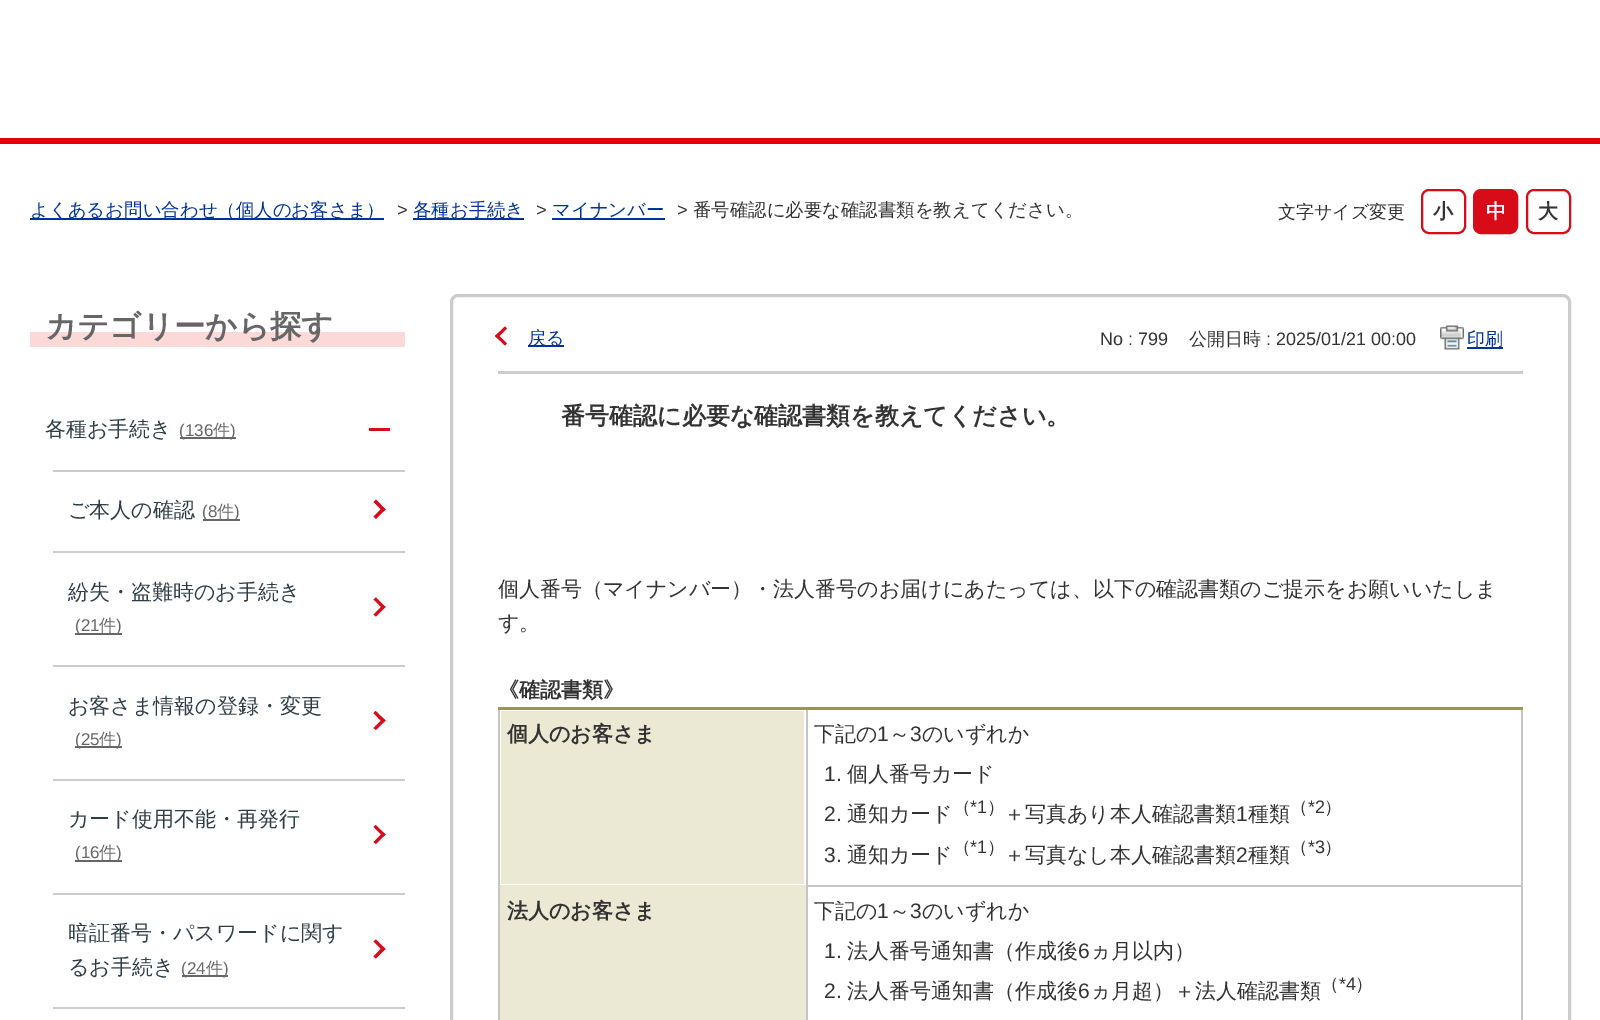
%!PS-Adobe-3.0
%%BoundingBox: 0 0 1600 1020
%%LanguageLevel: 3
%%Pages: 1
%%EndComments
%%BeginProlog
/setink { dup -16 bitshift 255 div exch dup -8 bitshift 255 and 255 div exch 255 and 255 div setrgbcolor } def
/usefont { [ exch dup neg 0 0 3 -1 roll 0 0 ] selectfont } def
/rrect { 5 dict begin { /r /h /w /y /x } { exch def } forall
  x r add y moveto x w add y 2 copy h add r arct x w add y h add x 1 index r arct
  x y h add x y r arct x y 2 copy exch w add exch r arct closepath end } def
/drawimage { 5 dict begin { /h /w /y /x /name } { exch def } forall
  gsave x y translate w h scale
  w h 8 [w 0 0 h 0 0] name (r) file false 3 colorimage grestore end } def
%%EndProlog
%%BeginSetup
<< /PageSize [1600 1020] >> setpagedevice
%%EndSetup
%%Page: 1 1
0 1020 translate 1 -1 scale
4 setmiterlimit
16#FFFFFF setink
0 0 1600 1020 rectfill
16#E60000 setink
0 138 1600 6 rectfill
16#003399 setink
30 218 354 2 rectfill
/WenQuanYiZenHei-Medium 18.4 usefont
30 216 moveto (よくあるお問い合わせ（個人のお客さま）) show
/LiberationSans-Regular 18.4 usefont
16#333333 setink
397 216 moveto (>) show
16#003399 setink
413 218 111 2 rectfill
/WenQuanYiZenHei-Medium 18.4 usefont
413 216 moveto (各種お手続き) show
/LiberationSans-Regular 18.4 usefont
16#333333 setink
536 216 moveto (>) show
16#003399 setink
552 218 113 2 rectfill
/WenQuanYiZenHei-Medium 18.4 usefont
552 216 moveto (マイナンバー) show
/LiberationSans-Regular 18.4 usefont
16#333333 setink
677 216 moveto (>) show
/WenQuanYiZenHei-Medium 18.4 usefont
693 216 moveto (番号確認に必要な確認書類を教えてください。) show
/WenQuanYiZenHei-Medium 18 usefont
1278 218 moveto (文字サイズ変更) show
16#D80C19 setink
2 setlinewidth
1422 190 43 43 7 rrect stroke
/WenQuanYiZenHei-Bold 20 usefont
16#333333 setink
1433 218 moveto (小) show
16#D80C19 setink
1474 190 43 43 7 rrect gsave fill grestore
stroke
16#FFFFFF setink
1486 218 moveto (中) show
16#D80C19 setink
1527 190 43 43 7 rrect stroke
16#333333 setink
1538 218 moveto (大) show
16#FBD9D9 setink
30 332 375 15 rectfill
/WenQuanYiZenHei-Bold 31.5 usefont
16#666666 setink
45 337 moveto (カテゴリーから探す) show
/WenQuanYiZenHei-Medium 21 usefont
16#2F3E46 setink
45 436 moveto (各種お手続き) show
16#666666 setink
180 437 56 2 rectfill
/LiberationSans-Regular 17 usefont
179 436 moveto (\(136) show
/WenQuanYiZenHei-Medium 17 usefont
213 436 moveto (件) show
/LiberationSans-Regular 17 usefont
230 436 moveto (\)) show
16#D80C19 setink
369 428 21 3 rectfill
16#CCCCCC setink
53 470 352 2 rectfill
/WenQuanYiZenHei-Medium 21 usefont
16#2F3E46 setink
68 517 moveto (ご本人の確認) show
16#666666 setink
203 519 37 2 rectfill
/LiberationSans-Regular 17 usefont
202 517 moveto (\(8) show
/WenQuanYiZenHei-Medium 17 usefont
217 517 moveto (件) show
/LiberationSans-Regular 17 usefont
234 517 moveto (\)) show
16#D80C19 setink
385.5 509.5 moveto 376 519 lineto 373.5 516.5 lineto 383 507 lineto closepath fill
385.5 509.5 moveto 383 511.5 lineto 373.5 502 lineto 376 499.5 lineto closepath fill
16#CCCCCC setink
53 551 352 2 rectfill
gsave
68 575 285 67 rectclip
/WenQuanYiZenHei-Medium 21 usefont
16#2F3E46 setink
68 599 moveto (紛失・盗難時のお手続き) show
grestore
16#666666 setink
75 633 47 2 rectfill
75 631 moveto (\(21) show
/WenQuanYiZenHei-Medium 17 usefont
99 631 moveto (件) show
/LiberationSans-Regular 17 usefont
116 631 moveto (\)) show
16#D80C19 setink
385.5 607 moveto 376 616.5 lineto 373.5 614.5 lineto 383 605 lineto closepath fill
385.5 607 moveto 383 609 lineto 373.5 599.5 lineto 376 597.5 lineto closepath fill
16#CCCCCC setink
53 665 352 2 rectfill
/WenQuanYiZenHei-Medium 21 usefont
16#2F3E46 setink
68 713 moveto (お客さま情報の登録・変更) show
16#666666 setink
75 746 47 2 rectfill
/LiberationSans-Regular 17 usefont
75 745 moveto (\(25) show
/WenQuanYiZenHei-Medium 17 usefont
99 745 moveto (件) show
/LiberationSans-Regular 17 usefont
116 745 moveto (\)) show
16#D80C19 setink
385.5 720.5 moveto 376 730 lineto 373.5 728 lineto 383 718.5 lineto closepath fill
385.5 720.5 moveto 383 723 lineto 373.5 713 lineto 375.5 711 lineto closepath fill
16#CCCCCC setink
53 779 352 2 rectfill
/WenQuanYiZenHei-Medium 21 usefont
16#2F3E46 setink
68 826 moveto (カード使用不能・再発行) show
16#666666 setink
75 860 47 2 rectfill
/LiberationSans-Regular 17 usefont
75 858 moveto (\(16) show
/WenQuanYiZenHei-Medium 17 usefont
99 858 moveto (件) show
/LiberationSans-Regular 17 usefont
116 858 moveto (\)) show
16#D80C19 setink
385.5 834.5 moveto 376 844 lineto 373.5 842 lineto 383 832.5 lineto closepath fill
385.5 834.5 moveto 383 836.5 lineto 373.5 827 lineto 375.5 825 lineto closepath fill
16#CCCCCC setink
53 893 352 2 rectfill
/WenQuanYiZenHei-Medium 21 usefont
16#2F3E46 setink
68 940 moveto (暗証番号・パスワードに関す) show
68 974 moveto (るお手続き) show
16#666666 setink
182 975 46 2 rectfill
/LiberationSans-Regular 17 usefont
181 974 moveto (\(24) show
/WenQuanYiZenHei-Medium 17 usefont
206 974 moveto (件) show
/LiberationSans-Regular 17 usefont
223 974 moveto (\)) show
16#D80C19 setink
385.5 949 moveto 376 958.5 lineto 373.5 956.5 lineto 383 946.5 lineto closepath fill
385.5 949 moveto 383 951 lineto 373.5 941.5 lineto 376 939.5 lineto closepath fill
16#CCCCCC setink
53 1007 352 2 rectfill
3 setlinewidth
451.5 295.5 1118 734 6.5 rrect stroke
498 371 1025 3 rectfill
16#D80C19 setink
495 336 moveto 505 326.5 lineto 507 328.5 lineto 497.5 338 lineto closepath fill
495 336 moveto 497.5 334 lineto 507 343.5 lineto 505 345.5 lineto closepath fill
16#003399 setink
528 345 36 2 rectfill
/WenQuanYiZenHei-Medium 18 usefont
528 344 moveto (戻る) show
/LiberationSans-Regular 18 usefont
16#333333 setink
1100 345 moveto (No : 799) show
/WenQuanYiZenHei-Medium 18 usefont
1189 345 moveto (公開日時) show
/LiberationSans-Regular 18 usefont
1266 345 moveto (: 2025/01/21 00:00) show
(img1.raw) 1440 325 24 25 drawimage
16#003399 setink
1467 347 36 2 rectfill
/WenQuanYiZenHei-Medium 18 usefont
1467 345 moveto (印刷) show
/WenQuanYiZenHei-Bold 24 usefont
16#333333 setink
561 424 moveto (番号確認に必要な確認書類を教えてください。) show
/WenQuanYiZenHei-Medium 21 usefont
498 596 moveto (個人番号（マイナンバー）・法人番号のお届けにあたっては、以下の確認書類のご提示をお願いいたしま) show
498 630 moveto (す。) show
/WenQuanYiZenHei-Bold 21 usefont
498 697 moveto (《確認書類》) show
16#EBE8D4 setink
501 711 303 173 rectfill
16#333333 setink
507 741 moveto (個人のお客さま) show
[
    [498 708 2 312 16#C5C5C5]
    [806 885 717 2 16#C5C5C5]
    [1521 708 2 312 16#C5C5C5]
    [806 708 2 312 16#C5C5C5]
    [498 707 1025 3 16#9F954A]
] { aload pop setink rectfill } forall
/WenQuanYiZenHei-Medium 21 usefont
16#333333 setink
814 741 moveto (下記の) show
/LiberationSans-Regular 21 usefont
877 741 moveto (1) show
/WenQuanYiZenHei-Medium 21 usefont
889 741 moveto (～) show
/LiberationSans-Regular 21 usefont
910 741 moveto (3) show
/WenQuanYiZenHei-Medium 21 usefont
922 741 moveto (のいずれか) show
/LiberationSans-Regular 21 usefont
824 781 moveto (1.) show
/WenQuanYiZenHei-Medium 21 usefont
847 781 moveto (個人番号カード) show
/LiberationSans-Regular 21 usefont
824 821 moveto (2.) show
/WenQuanYiZenHei-Medium 21 usefont
847 821 moveto (通知カード) show
/WenQuanYiZenHei-Medium 18 usefont
953 813 moveto (（) show
/LiberationSans-Regular 18 usefont
970 813 moveto (*1) show
/WenQuanYiZenHei-Medium 18 usefont
987 813 moveto (）) show
/WenQuanYiZenHei-Medium 21 usefont
1004 821 moveto (＋写真あり本人確認書類) show
/LiberationSans-Regular 21 usefont
1236 821 moveto (1) show
/WenQuanYiZenHei-Medium 21 usefont
1248 821 moveto (種類) show
/WenQuanYiZenHei-Medium 18 usefont
1290 813 moveto (（) show
/LiberationSans-Regular 18 usefont
1308 813 moveto (*2) show
/WenQuanYiZenHei-Medium 18 usefont
1324 813 moveto (）) show
/LiberationSans-Regular 21 usefont
824 862 moveto (3.) show
/WenQuanYiZenHei-Medium 21 usefont
847 862 moveto (通知カード) show
/WenQuanYiZenHei-Medium 18 usefont
953 853 moveto (（) show
/LiberationSans-Regular 18 usefont
970 853 moveto (*1) show
/WenQuanYiZenHei-Medium 18 usefont
987 853 moveto (）) show
/WenQuanYiZenHei-Medium 21 usefont
1004 862 moveto (＋写真なし本人確認書類) show
/LiberationSans-Regular 21 usefont
1236 862 moveto (2) show
/WenQuanYiZenHei-Medium 21 usefont
1248 862 moveto (種類) show
/WenQuanYiZenHei-Medium 18 usefont
1290 853 moveto (（) show
/LiberationSans-Regular 18 usefont
1308 853 moveto (*3) show
/WenQuanYiZenHei-Medium 18 usefont
1324 853 moveto (）) show
16#EBE8D4 setink
500 885 306 135 rectfill
/WenQuanYiZenHei-Bold 21 usefont
16#333333 setink
507 918 moveto (法人のお客さま) show
/WenQuanYiZenHei-Medium 21 usefont
814 918 moveto (下記の) show
/LiberationSans-Regular 21 usefont
877 918 moveto (1) show
/WenQuanYiZenHei-Medium 21 usefont
889 918 moveto (～) show
/LiberationSans-Regular 21 usefont
910 918 moveto (3) show
/WenQuanYiZenHei-Medium 21 usefont
922 918 moveto (のいずれか) show
/LiberationSans-Regular 21 usefont
824 958 moveto (1.) show
/WenQuanYiZenHei-Medium 21 usefont
847 958 moveto (法人番号通知書（作成後) show
/LiberationSans-Regular 21 usefont
1078 958 moveto (6) show
/WenQuanYiZenHei-Medium 21 usefont
1090 958 moveto (ヵ月以内）) show
/LiberationSans-Regular 21 usefont
824 998 moveto (2.) show
/WenQuanYiZenHei-Medium 21 usefont
847 998 moveto (法人番号通知書（作成後) show
/LiberationSans-Regular 21 usefont
1078 998 moveto (6) show
/WenQuanYiZenHei-Medium 21 usefont
1090 998 moveto (ヵ月超）＋法人確認書類) show
/WenQuanYiZenHei-Medium 18 usefont
1321 990 moveto (（) show
/LiberationSans-Regular 18 usefont
1339 990 moveto (*4) show
/WenQuanYiZenHei-Medium 18 usefont
1355 990 moveto (）) show
showpage
%%EOF
